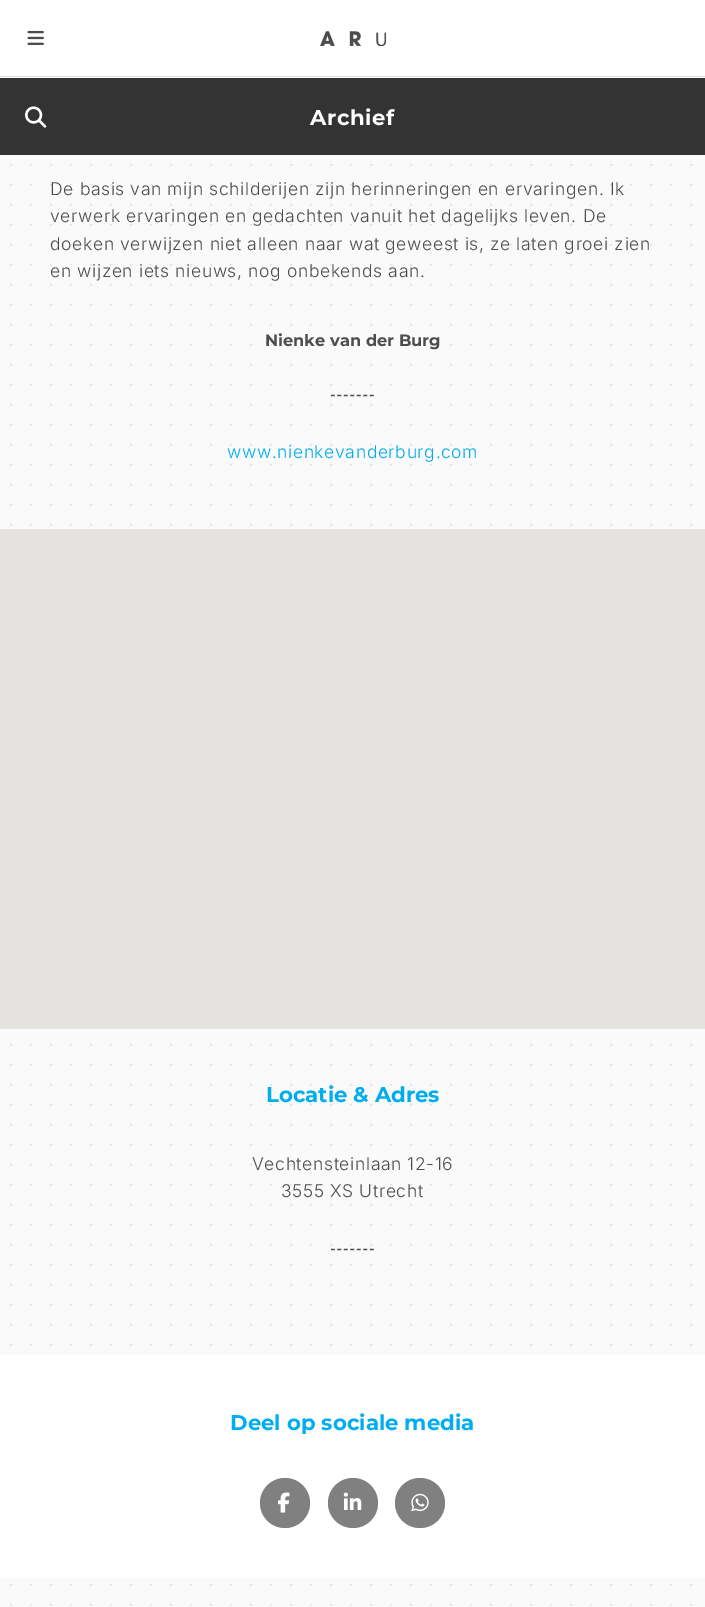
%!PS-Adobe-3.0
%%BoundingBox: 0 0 705 1607
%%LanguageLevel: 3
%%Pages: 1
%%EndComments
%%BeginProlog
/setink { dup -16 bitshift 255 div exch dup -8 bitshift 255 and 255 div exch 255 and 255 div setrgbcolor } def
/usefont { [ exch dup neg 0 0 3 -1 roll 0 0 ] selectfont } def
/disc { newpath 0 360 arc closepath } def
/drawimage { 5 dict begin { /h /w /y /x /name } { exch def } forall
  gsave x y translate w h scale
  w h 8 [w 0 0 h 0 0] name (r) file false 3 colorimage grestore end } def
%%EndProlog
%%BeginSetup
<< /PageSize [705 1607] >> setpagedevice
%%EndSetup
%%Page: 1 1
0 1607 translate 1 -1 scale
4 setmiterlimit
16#FAFAFA setink
0 0 705 1607 rectfill
16#FFFFFF setink
0 0 705 78 rectfill
(img1.raw) 320 31 66 15 drawimage
16#DCDCDC setink
0 76 705 1 rectfill
(img2.raw) 27 30 17 15 drawimage
16#333333 setink
0 78 705 77 rectfill
(img3.raw) 25 106 22 22 drawimage
/Montserrat-Thin 21.25 usefont
16#FFFFFF setink
310 125 moveto 0.62 0 (Archief) ashow
(img4.raw) 10 164 683 1442 drawimage
/Inter-Light 17.5 usefont
16#4D4D4D setink
50 195 moveto 0.62 0 (De basis van mijn schilderijen zijn herinneringen en ervaringen. Ik) ashow
50 222 moveto 0.62 0 (verwerk ervaringen en gedachten vanuit het dagelijks leven. De) ashow
50 250 moveto 0.62 0 (doeken verwijzen niet alleen naar wat geweest is, ze laten groei zien) ashow
50 277 moveto 0.62 0 (en wijzen iets nieuws, nog onbekends aan.) ashow
/Montserrat-Thin 16.25 usefont
265 346 moveto (Nienke van der Burg) show
1.2 setlinewidth
[3.75 2.71] 0 setdash
331 395.5 moveto 374 395.5 lineto stroke
/Inter-Light 17.5 usefont
16#00ADEE setink
227 458 moveto 0.62 0 (www.nienkevanderburg.com) ashow
16#E5E3DF setink
0 529 705 500 rectfill
/Montserrat-Thin 21.25 usefont
16#00ADEE setink
266 1102 moveto (Locatie & Adres) show
/Inter-Light 17.5 usefont
16#4D4D4D setink
252 1170 moveto 0.62 0 (Vechtensteinlaan 12-16) ashow
281 1197 moveto 0.62 0 (3555 XS Utrecht) ashow
331 1249.5 moveto 374 1249.5 lineto stroke
16#FFFFFF setink
0 1355 705 223 rectfill
/Montserrat-Thin 21.25 usefont
16#00ADEE setink
230 1430 moveto (Deel op sociale media) show
16#808080 setink
285 1503 25 disc fill
(img5.raw) 278 1492 12 21 drawimage
353 1503 25 disc fill
(img6.raw) 343 1492 19 18 drawimage
420 1503 25 disc fill
(img7.raw) 411 1493 18 19 drawimage
showpage
%%EOF
